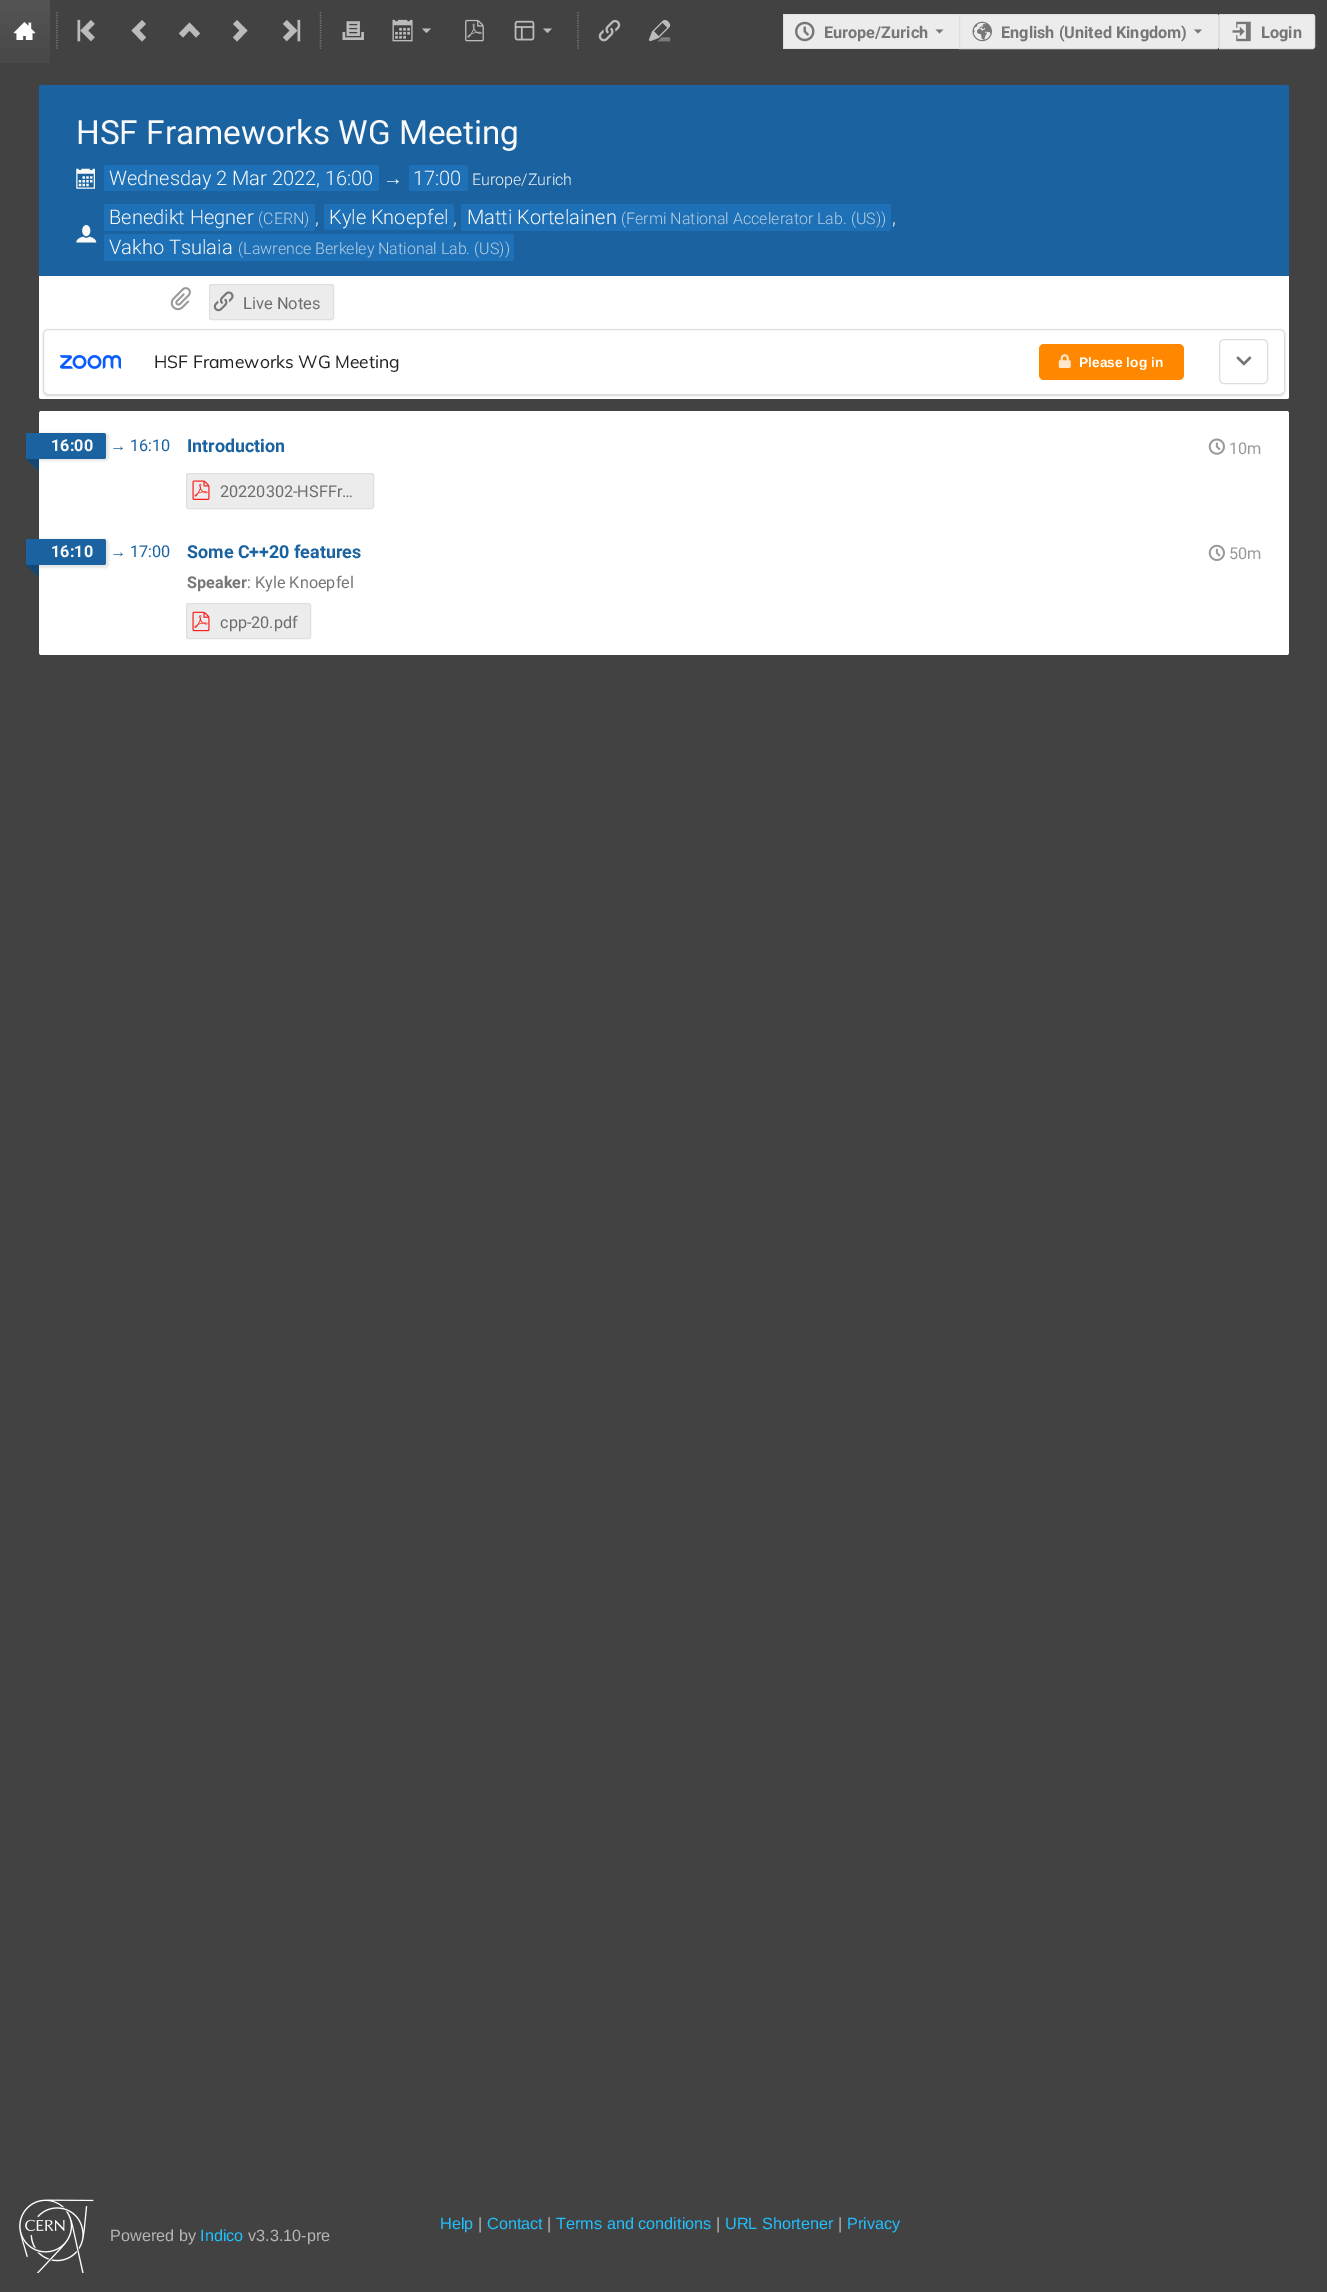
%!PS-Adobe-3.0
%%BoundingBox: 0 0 1327 2292
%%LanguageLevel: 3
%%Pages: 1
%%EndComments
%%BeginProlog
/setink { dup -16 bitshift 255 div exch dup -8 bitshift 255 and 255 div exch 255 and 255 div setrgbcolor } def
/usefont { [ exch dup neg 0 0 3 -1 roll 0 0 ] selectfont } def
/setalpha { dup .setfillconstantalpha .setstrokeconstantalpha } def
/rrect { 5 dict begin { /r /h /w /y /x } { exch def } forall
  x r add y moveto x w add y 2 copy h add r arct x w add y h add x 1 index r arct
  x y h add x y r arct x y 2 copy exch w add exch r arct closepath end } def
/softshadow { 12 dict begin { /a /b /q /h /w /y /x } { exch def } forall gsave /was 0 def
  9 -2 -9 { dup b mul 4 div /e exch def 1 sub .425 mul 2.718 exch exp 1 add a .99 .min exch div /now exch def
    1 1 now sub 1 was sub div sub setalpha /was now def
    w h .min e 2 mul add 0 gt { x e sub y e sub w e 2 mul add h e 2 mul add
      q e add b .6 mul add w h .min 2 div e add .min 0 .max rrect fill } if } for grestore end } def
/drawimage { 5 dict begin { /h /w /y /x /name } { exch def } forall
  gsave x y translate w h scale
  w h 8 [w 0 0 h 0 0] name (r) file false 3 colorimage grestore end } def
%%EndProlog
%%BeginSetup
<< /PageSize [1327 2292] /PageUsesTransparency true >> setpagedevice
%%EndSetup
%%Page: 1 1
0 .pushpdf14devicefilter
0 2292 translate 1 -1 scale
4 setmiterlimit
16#424242 setink
0 0 1327 2292 rectfill
gsave 0 0 moveto 50 0 lineto 50 63 lineto 0 63 lineto closepath clip newpath
<< /ShadingType 2 /ColorSpace /DeviceRGB /Coords [25 0 25 63] /Extend [true true] /Function << /FunctionType 2 /Domain [0 1] /C0 [0.333 0.333 0.333] /C1 [0.282 0.282 0.282] /N 1 >> >> shfill grestore
(img1.raw) 13 22 23 18 drawimage
16#777777 setink
1.2 setlinewidth
[1.25 1.25] 0 setdash
57 12.5 moveto 57 50 lineto stroke
(img2.raw) 77 19 18 23 drawimage
16#BBBBBB setink
142 41.5 moveto 146 37.5 lineto 139.5 30.5 lineto 146 24 lineto 142 20 lineto 131.5 30.5 lineto closepath fill
179 33.5 moveto 183 37.5 lineto 189.5 30.5 lineto 196 37.5 lineto 200 33.5 lineto 189.5 22.5 lineto closepath fill
237 20 moveto 233 24 lineto 239.5 30.5 lineto 233 37.5 lineto 237 41.5 lineto 247.5 30.5 lineto closepath fill
(img3.raw) 282 19 19 23 drawimage
16#777777 setink
320.5 12.5 moveto 320.5 50 lineto stroke
(img4.raw) 342 21 22 19 drawimage
(img5.raw) 392 19 21 23 drawimage
16#BBBBBB setink
422 28.5 moveto 426.5 33 lineto 431 28.5 lineto closepath fill
(img6.raw) 465 19 19 23 drawimage
(img7.raw) 514 20 21 21 drawimage
543 28.5 moveto 547.5 33 lineto 552 28.5 lineto closepath fill
16#777777 setink
578 12.5 moveto 578 50 lineto stroke
(img8.raw) 598 19 23 23 drawimage
(img9.raw) 648 19 23 23 drawimage
[
    [784 15 175 33 16#ECECEC]
    [783 14 176 1 16#DFDFDF]
    [783 48 176 1 16#DFDFDF]
    [783 14 1 35 16#DFDFDF]
] { aload pop setink rectfill } forall
(img10.raw) 795 21 20 21 drawimage
/Roboto-Bold 16.25 usefont
16#777777 setink
824 38 moveto (Europe/Zurich) show
935.5 29.5 moveto 939.5 33.5 lineto 943.5 29.5 lineto closepath fill
16#ECECEC setink
959.5 14.5 moveto 1216.5 14.5 lineto 1217.5 14.5 1218.5 15.5 1218.5 16.5 curveto 1218.5 46.5 lineto 1218.5 47.5 1217.5 48.5 1216.5 48.5 curveto 959.5 48.5 lineto closepath gsave fill grestore
16#DFDFDF setink
1 setlinewidth
[] 0 setdash
stroke
(img11.raw) 972 21 20 21 drawimage
16#777777 setink
1001 38 moveto (English \(United Kingdom\)) show
1194 29.5 moveto 1198 33.5 lineto 1202 29.5 lineto closepath fill
16#ECECEC setink
1219.5 14.5 moveto 1312.5 14.5 lineto 1313.5 14.5 1314.5 15.5 1314.5 16.5 curveto 1314.5 46.5 lineto 1314.5 47.5 1313.5 48.5 1312.5 48.5 curveto 1219.5 48.5 lineto closepath gsave fill grestore
16#DFDFDF setink
stroke
(img12.raw) 1232 21 19 21 drawimage
16#777777 setink
1261 38 moveto (Login) show
16#1A63A0 setink
41.5 85 moveto 1286.5 85 lineto 1288 85 1289 86 1289 87.5 curveto 1289 276 lineto 39 276 lineto 39 87.5 lineto 39 86 40 85 41.5 85 curveto closepath fill
/Roboto-Regular 33.3 usefont
16#F9F9F9 setink
76 144 moveto (HSF Frameworks WG Meeting) show
(img13.raw) 76 168 19 21 drawimage
16#1E71B6 setink
104 165 275 26 2.5 rrect fill
/Roboto-Light 20 usefont
16#F9F9F9 setink
109 185 moveto (Wednesday 2 Mar 2022, 16:00) show
/LiberationSans-Regular 20 usefont
383 185 moveto (→) show
16#1E71B6 setink
409 165 59 26 2.5 rrect fill
/Roboto-Light 20 usefont
16#F9F9F9 setink
413 185 moveto (17:00) show
/Roboto-Light 16 usefont
472 185 moveto (Europe/Zurich) show
(img14.raw) 76 225 21 18 drawimage
16#1E71B6 setink
104 204 211 27 2.5 rrect fill
/Roboto-Light 20 usefont
16#F9F9F9 setink
109 224 moveto (Benedikt Hegner) show
/Roboto-Light 16 usefont
16#B7D0E5 setink
258 224 moveto (\(CERN\)) show
/Roboto-Light 20 usefont
16#F9F9F9 setink
315 224 moveto (,) show
16#1E71B6 setink
324 204 130 26 2.5 rrect fill
16#F9F9F9 setink
329 224 moveto (Kyle Knoepfel ,) show
16#1E71B6 setink
461 204 430 27 2.5 rrect fill
16#F9F9F9 setink
467 224 moveto (Matti Kortelainen) show
/Roboto-Light 16 usefont
16#B7D0E5 setink
621 224 moveto (\(Fermi National Accelerator Lab. \(US\)\)) show
/Roboto-Light 20 usefont
16#F9F9F9 setink
892 224 moveto (,) show
16#1E71B6 setink
104 234 410 27 2.5 rrect fill
16#F9F9F9 setink
109 254 moveto (Vakho Tsulaia) show
/Roboto-Light 16 usefont
16#B7D0E5 setink
238 254 moveto (\(Lawrence Berkeley National Lab. \(US\)\)) show
16#FFFFFF setink
39 276 moveto 1289 276 lineto 1289 396.5 lineto 1289 398 1288 399 1286.5 399 curveto 41.5 399 lineto 40 399 39 398 39 396.5 curveto closepath fill
(img15.raw) 170 287 21 24 drawimage
16#ECECEC setink
209.5 284.5 124 35 2 rrect gsave fill grestore
16#DFDFDF setink
stroke
(img16.raw) 213 291 21 21 drawimage
/Roboto-Regular 16.5 usefont
16#6E6E6E setink
243 309 moveto (Live Notes) show
16#222426 setink
43 330 1242 66 5 1 0.15 softshadow
16#FFFFFF setink
43 329 1242 66 5 rrect fill
0.15 setalpha
16#222426 setink
43.5 329.5 1241 65 4.5 rrect stroke
1 setalpha
(img17.raw) 60 355 61 14 drawimage
/Mulish-Regular 17.5 usefont
16#212121 setink
154 368 moveto (HSF Frameworks WG Meeting) show
16#FF8800 setink
1039 344 145 36 5 rrect fill
(img18.raw) 1058 354 13 14 drawimage
/LiberationSans-Bold 13.75 usefont
16#FFFFFF setink
1079 367 moveto (Please log in) show
16#DEDEDE setink
1219.5 339.5 48 44 4.5 rrect stroke
(img19.raw) 1236 356 16 10 drawimage
16#FFFFFF setink
39 411 1250 244 2.5 rrect fill
16#000000 setink
26 433 83 28 4 1 0.1 softshadow
16#1A63A0 setink
26 433 moveto 103.5 433 lineto 105 433 106 434 106 435.5 curveto 106 456.5 lineto 106 458 105 459 103.5 459 curveto 26 459 lineto closepath fill
/Roboto-Bold 16.25 usefont
16#F9F9F9 setink
51 451 moveto (16:00) show
16#134874 setink
26 459 moveto 39 459 lineto 32.5 465 lineto closepath fill
39 459 moveto 39 471 lineto 32.5 465 lineto closepath fill
/LiberationSans-Regular 16.25 usefont
16#1A63A0 setink
110 451 moveto (→) show
/Roboto-Regular 16.25 usefont
130 451 moveto (16:10) show
/Roboto-Bold 17.9 usefont
187 452 moveto (Introduction) show
(img20.raw) 1208 438 17 17 drawimage
/Roboto-Regular 16.25 usefont
16#999999 setink
1229 454 moveto (10m) show
16#ECECEC setink
186.5 473.5 187 35 2 rrect gsave fill grestore
16#DFDFDF setink
stroke
(img21.raw) 192 480 18 20 drawimage
16#6E6E6E setink
220 497 moveto (20220302-HSFFr…) show
16#000000 setink
26 539 83 29 4 1 0.1 softshadow
16#1A63A0 setink
26 539 moveto 103.5 539 lineto 105 539 106 540 106 541.5 curveto 106 562.5 lineto 106 564 105 565 103.5 565 curveto 26 565 lineto closepath fill
/Roboto-Bold 16.25 usefont
16#F9F9F9 setink
51 557 moveto (16:10) show
16#134874 setink
26 565 moveto 39 565 lineto 32.5 571 lineto closepath fill
39 565 moveto 39 577.5 lineto 32.5 571 lineto closepath fill
/LiberationSans-Regular 16.25 usefont
16#1A63A0 setink
110 557 moveto (→) show
/Roboto-Regular 16.25 usefont
130 557 moveto (17:00) show
/Roboto-Bold 17.9 usefont
187 558 moveto (Some C++20 features) show
(img22.raw) 1208 544 17 17 drawimage
/Roboto-Regular 16.25 usefont
16#999999 setink
1229 559 moveto (50m) show
/Roboto-Bold 16.25 usefont
16#777777 setink
187 588 moveto (Speaker) show
/Roboto-Regular 16.25 usefont
247 588 moveto (: Kyle Knoepfel) show
16#ECECEC setink
186.5 603.5 124 35 2 rrect gsave fill grestore
16#DFDFDF setink
stroke
(img23.raw) 192 611 18 21 drawimage
16#6E6E6E setink
220 628 moveto (cpp-20.pdf) show
/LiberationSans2-Regular 16.25 usefont
16#21C0FF setink
440 2229 moveto (Help) show
16#BBBBBB setink
478 2229 moveto (|) show
16#21C0FF setink
487 2229 moveto (Contact) show
16#BBBBBB setink
547 2229 moveto (|) show
16#21C0FF setink
556 2229 moveto (Terms and conditions) show
16#BBBBBB setink
716 2229 moveto (|) show
16#21C0FF setink
725 2229 moveto (URL Shortener) show
16#BBBBBB setink
838 2229 moveto (|) show
16#21C0FF setink
847 2229 moveto (Privacy) show
(img24.raw) 19 2199 75 74 drawimage
16#B5B5B5 setink
110 2241 moveto (Powered by) show
16#21C0FF setink
200 2241 moveto (Indico) show
16#B5B5B5 setink
248 2241 moveto (v3.3.10-pre) show
.poppdf14devicefilter showpage
%%EOF
